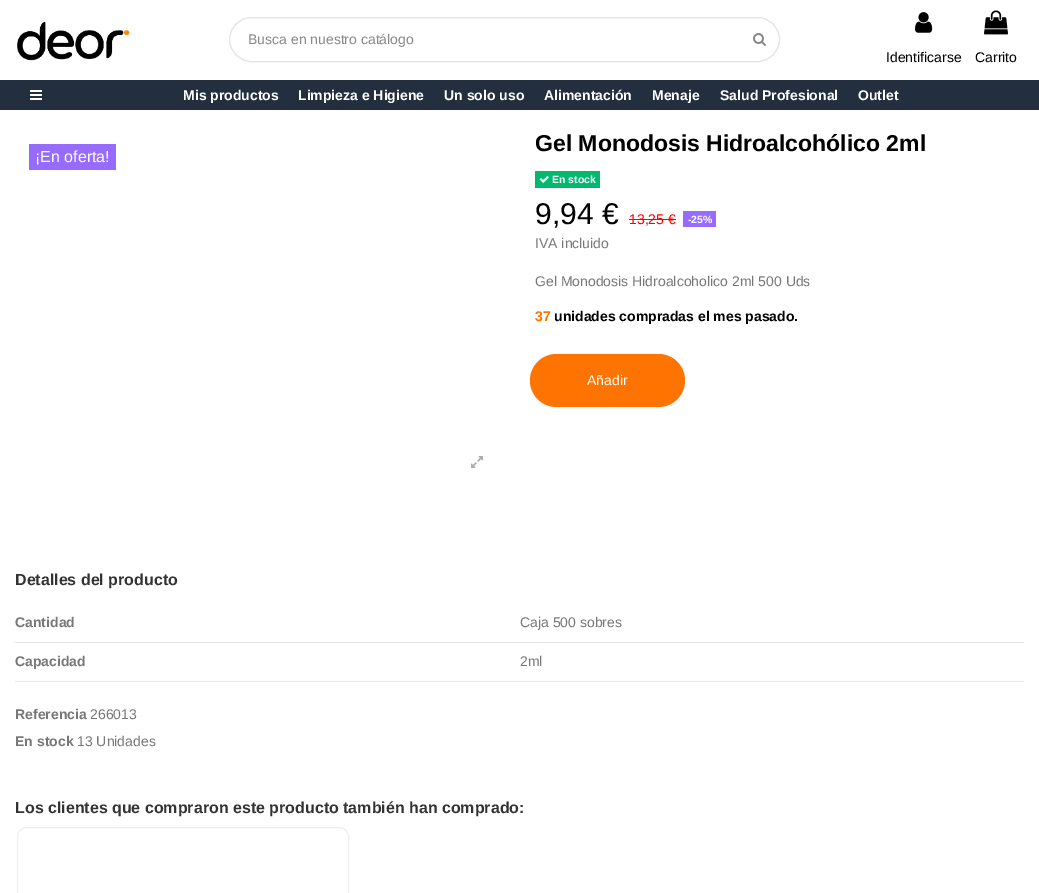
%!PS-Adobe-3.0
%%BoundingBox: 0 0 1039 893
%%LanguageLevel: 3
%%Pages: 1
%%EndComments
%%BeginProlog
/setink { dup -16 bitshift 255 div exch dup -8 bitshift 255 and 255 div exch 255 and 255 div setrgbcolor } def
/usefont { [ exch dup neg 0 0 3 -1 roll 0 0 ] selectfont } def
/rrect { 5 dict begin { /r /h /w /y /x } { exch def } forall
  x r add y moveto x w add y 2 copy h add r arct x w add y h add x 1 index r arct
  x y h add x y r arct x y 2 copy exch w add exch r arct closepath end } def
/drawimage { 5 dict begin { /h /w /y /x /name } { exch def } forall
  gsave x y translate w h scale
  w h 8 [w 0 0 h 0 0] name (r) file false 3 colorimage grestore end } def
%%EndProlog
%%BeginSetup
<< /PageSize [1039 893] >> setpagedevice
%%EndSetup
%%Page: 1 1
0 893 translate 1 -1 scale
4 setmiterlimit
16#FFFFFF setink
0 0 1039 893 rectfill
(img1.raw) 17 21 113 40 drawimage
16#E3E3E3 setink
229.5 17.5 550 44 22 rrect stroke
/LiberationSans-Regular 14 usefont
16#888888 setink
248 44 moveto (Busca en nuestro catálogo) show
(img2.raw) 753 33 13 13 drawimage
(img3.raw) 915 12 18 21 drawimage
16#000000 setink
886 62 moveto (Identificarse) show
(img4.raw) 984 10 24 25 drawimage
975 62 moveto (Carrito) show
16#232F3E setink
0 80 1039 30 rectfill
(img5.raw) 30 90 12 10 drawimage
/LiberationSans-Bold 14 usefont
16#FFFFFF setink
[
    [(Mis productos) 183 100]
    [(Limpieza e Higiene) 298 100]
    [(Un solo uso) 444 100]
    [(Alimentación) 544 100]
    [(Menaje) 652 100]
    [(Salud Profesional) 720 100]
    [(Outlet) 858 100]
] { aload pop moveto show } forall
16#976BFE setink
29 144 87 26 rectfill
/LiberationSans-Regular 16 usefont
16#FFFFFF setink
35 162 moveto (¡En oferta!) show
(img6.raw) 471 456 12 12 drawimage
/LiberationSans-Bold 23 usefont
16#000000 setink
535 151 moveto (Gel Monodosis Hidroalcohólico 2ml) show
16#00B86E setink
535 171 65 17 rectfill
(img7.raw) 539 176 10 7 drawimage
/LiberationSans-Bold 10.5 usefont
16#FFFFFF setink
552 183 moveto (En stock) show
/LiberationSans-Regular 30 usefont
16#000000 setink
535 224 moveto (9,94 €) show
/LiberationSans-Regular 14 usefont
16#FF0000 setink
629 224 moveto (13,25 €) show
629 219 47 1 rectfill
16#976BFE setink
683 211 33 16 rectfill
/LiberationSans-Bold 10.5 usefont
16#FFFFFF setink
688 223 moveto (-25%) show
/LiberationSans-Regular 14 usefont
16#777777 setink
535 248 moveto (IVA incluido) show
535 286 moveto (Gel Monodosis Hidroalcoholico 2ml 500 Uds) show
/LiberationSans-Bold 14 usefont
16#FF7400 setink
535 321 moveto (37) show
16#000000 setink
554 321 moveto (unidades compradas el mes pasado.) show
16#FF7400 setink
530 354 155 53 26.5 rrect fill
/LiberationSans-Regular 14 usefont
16#FFFFFF setink
587 385 moveto (Añadir) show
/LiberationSans-Bold 16 usefont
16#333333 setink
15 585 moveto (Detalles del producto) show
16#E7E7E7 setink
15 642 1009 1 rectfill
/LiberationSans-Bold 14 usefont
16#777777 setink
15 627 moveto (Cantidad) show
/LiberationSans-Regular 14 usefont
520 627 moveto (Caja 500 sobres) show
16#E7E7E7 setink
15 681 1009 1 rectfill
/LiberationSans-Bold 14 usefont
16#777777 setink
15 666 moveto (Capacidad) show
/LiberationSans-Regular 14 usefont
520 666 moveto (2ml) show
/LiberationSans-Bold 14 usefont
15 719 moveto (Referencia) show
/LiberationSans-Regular 14 usefont
90 719 moveto (266013) show
/LiberationSans-Bold 14 usefont
15 746 moveto (En stock) show
/LiberationSans-Regular 14 usefont
77 746 moveto (13 Unidades) show
/LiberationSans-Bold 16 usefont
16#333333 setink
15 813 moveto (Los clientes que compraron este producto también han comprado:) show
16#EFEFEF setink
17.5 827.5 331 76 9.5 rrect stroke
showpage
%%EOF
